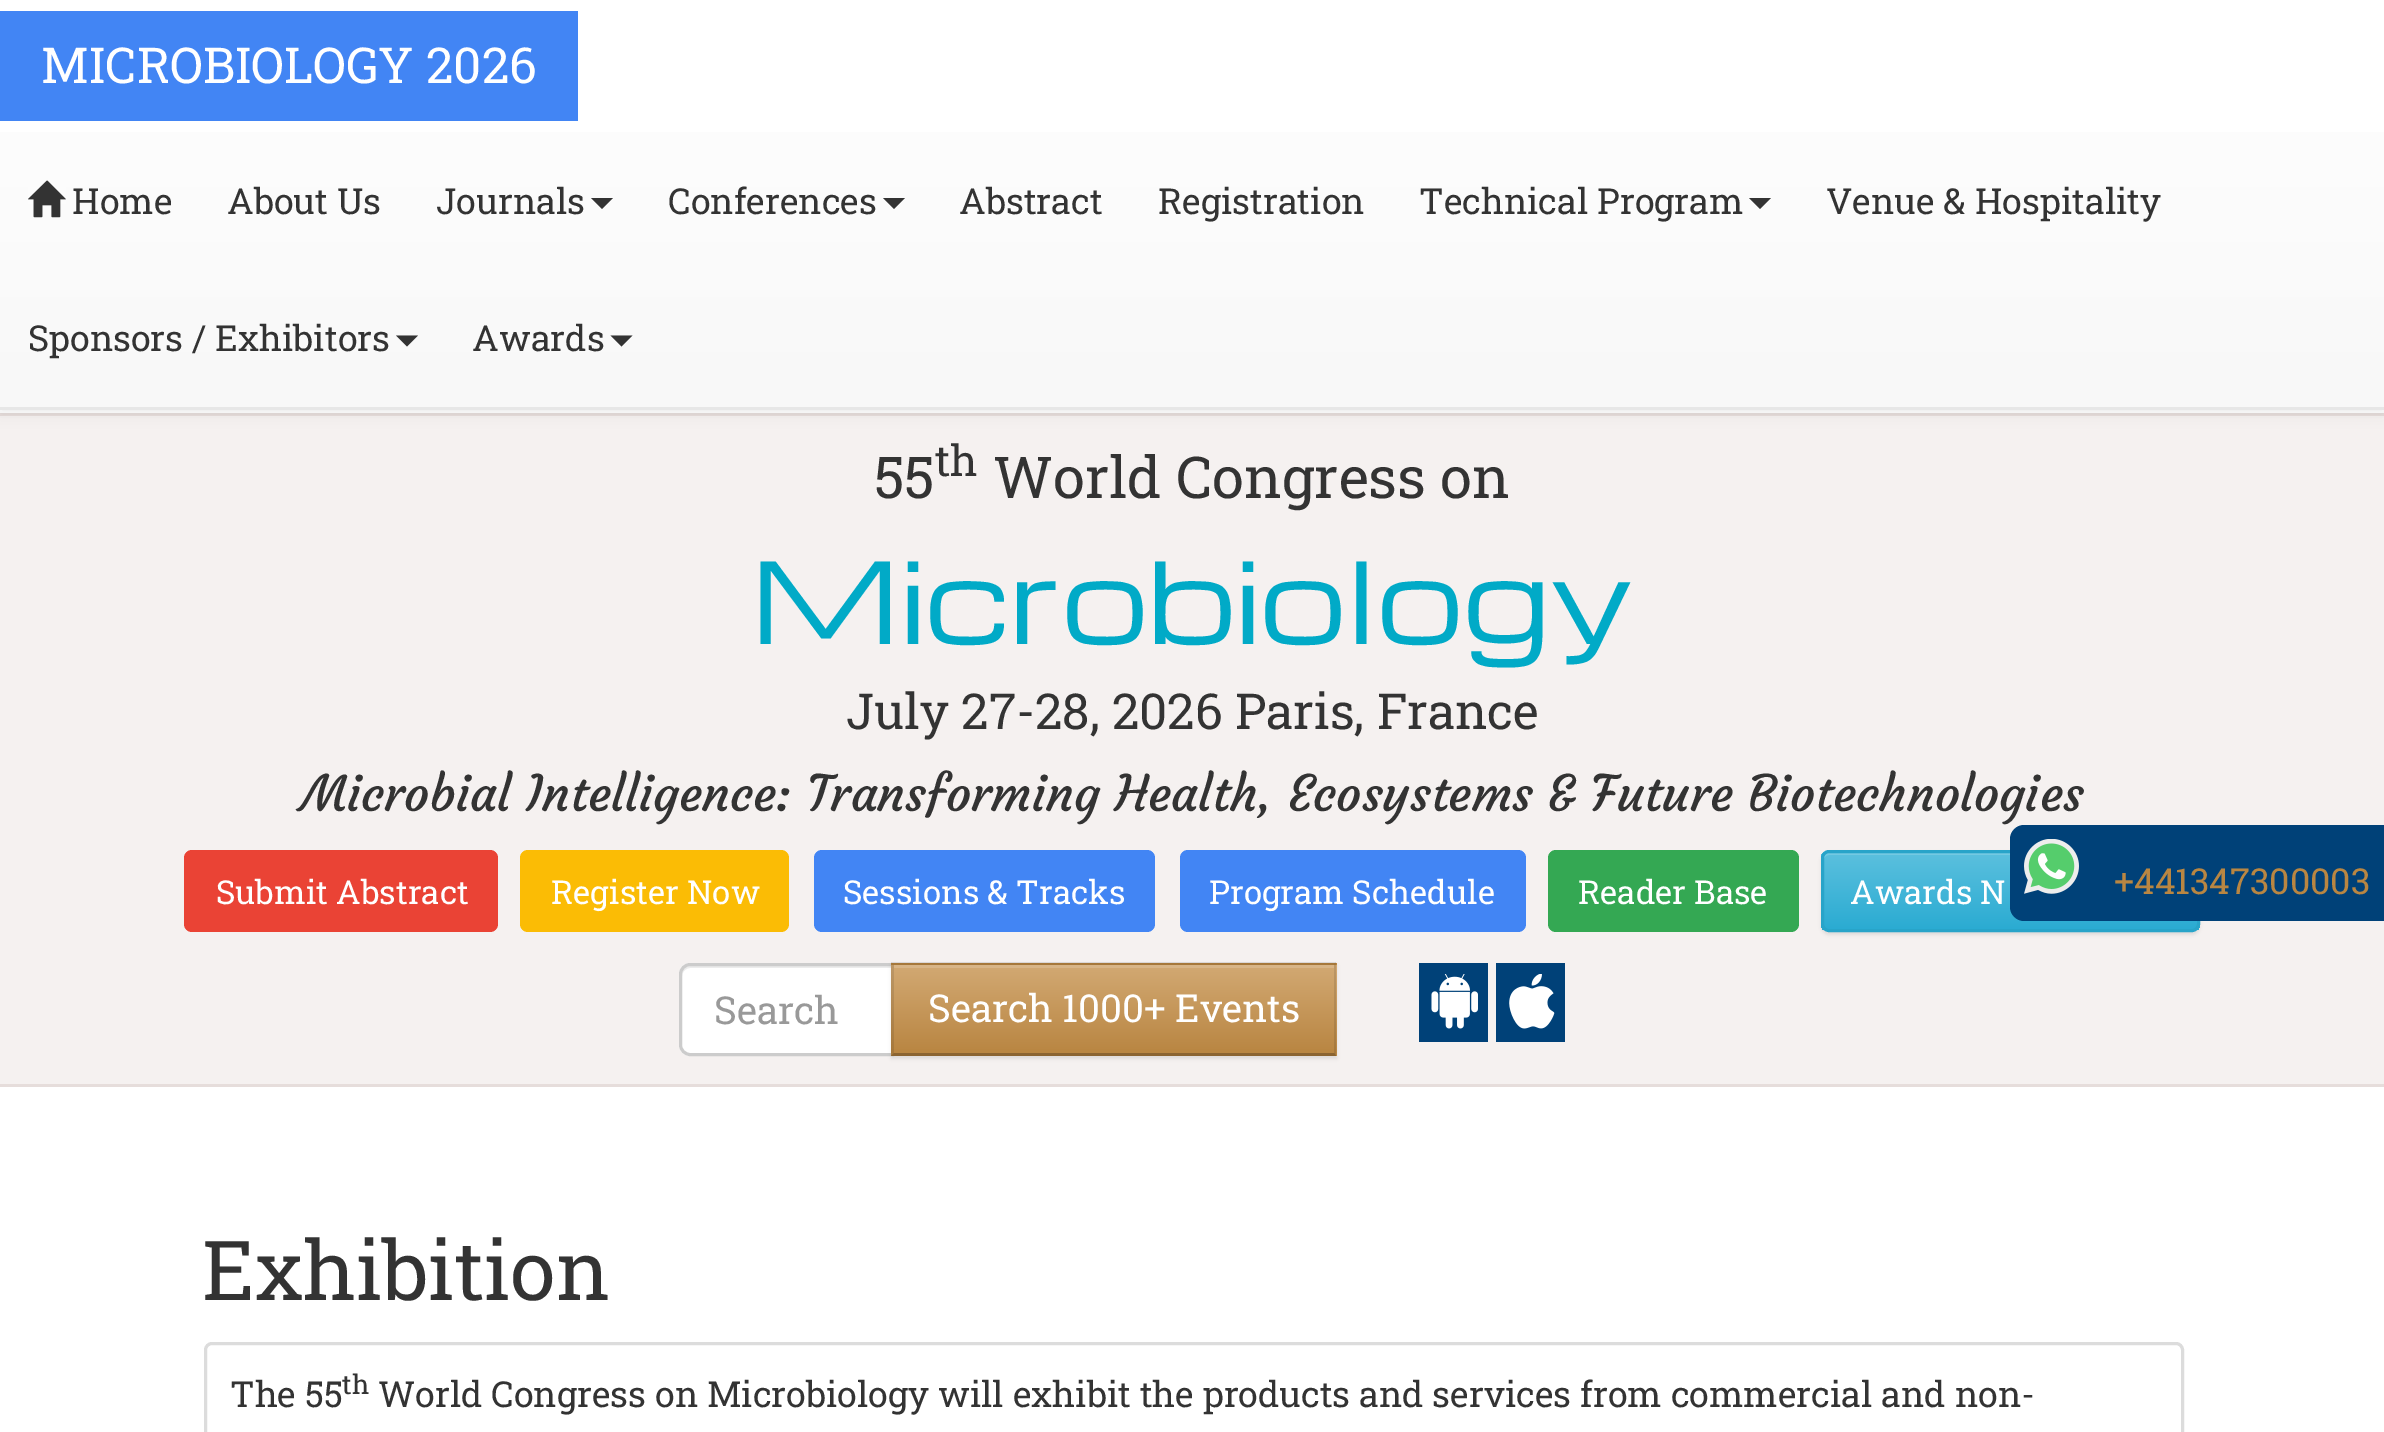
%!PS-Adobe-3.0
%%BoundingBox: 0 0 2384 1432
%%LanguageLevel: 3
%%Pages: 1
%%EndComments
%%BeginProlog
/setink { dup -16 bitshift 255 div exch dup -8 bitshift 255 and 255 div exch 255 and 255 div setrgbcolor } def
/usefont { [ exch dup neg 0 0 3 -1 roll 0 0 ] selectfont } def
/setalpha { dup .setfillconstantalpha .setstrokeconstantalpha } def
/rrect { 5 dict begin { /r /h /w /y /x } { exch def } forall
  x r add y moveto x w add y 2 copy h add r arct x w add y h add x 1 index r arct
  x y h add x y r arct x y 2 copy exch w add exch r arct closepath end } def
/softshadow { 12 dict begin { /a /b /q /h /w /y /x } { exch def } forall gsave /was 0 def
  9 -2 -9 { dup b mul 4 div /e exch def 1 sub .425 mul 2.718 exch exp 1 add a .99 .min exch div /now exch def
    1 1 now sub 1 was sub div sub setalpha /was now def
    w h .min e 2 mul add 0 gt { x e sub y e sub w e 2 mul add h e 2 mul add
      q e add b .6 mul add w h .min 2 div e add .min 0 .max rrect fill } if } for grestore end } def
/drawimage { 5 dict begin { /h /w /y /x /name } { exch def } forall
  gsave x y translate w h scale
  w h 8 [w 0 0 h 0 0] name (r) file false 3 colorimage grestore end } def
%%EndProlog
%%BeginSetup
<< /PageSize [2384 1432] /PageUsesTransparency true >> setpagedevice
%%EndSetup
%%Page: 1 1
0 .pushpdf14devicefilter
0 1432 translate 1 -1 scale
4 setmiterlimit
16#FFFFFF setink
0 0 2384 1432 rectfill
16#F5F1F0 setink
0 416 2384 668 rectfill
16#E6DDDB setink
0 413 2384 3 rectfill
16#000000 setink
0 3 2384 410 0 7 0.07 softshadow
gsave 0 132 moveto 2384 132 lineto 2384 407 lineto 0 407 lineto closepath clip newpath
<< /ShadingType 2 /ColorSpace /DeviceRGB /Coords [1192 0 1192 407] /Extend [true true] /Function << /FunctionType 2 /Domain [0 1] /C0 [1 1 1] /C1 [0.973 0.973 0.973] /N 1 >> >> shfill grestore
[
    [0 407 2384 3 16#E7E7E7]
    [0 0 2384 132 16#FFFFFF]
    [0 11 578 110 16#4285F4]
] { aload pop setink rectfill } forall
/RobotoSlab-Regular 49.5 usefont
16#FFFFFF setink
41 83 moveto (MICROBIOLOGY 2026) show
(img1.raw) 28 180 38 38 drawimage
/RobotoSlab-Regular 35.75 usefont
16#333333 setink
[
    [(Home) 72 214]
    [(About Us) 227 214]
    [(Journals) 436 214]
] { aload pop moveto show } forall
591 198 moveto 613 198 lineto 602 209 lineto closepath fill
668 214 moveto (Conferences) show
883 198 moveto 905 198 lineto 894 209 lineto closepath fill
[
    [(Abstract) 959 214]
    [(Registration) 1158 214]
    [(Technical Program) 1419 214]
] { aload pop moveto show } forall
1749 198 moveto 1771 198 lineto 1760 209 lineto closepath fill
1826 214 moveto (Venue & Hospitality) show
28 351 moveto (Sponsors / Exhibitors) show
396 335.5 moveto 418 335.5 lineto 407 346.5 lineto closepath fill
472 351 moveto (Awards) show
610.5 335.5 moveto 632.5 335.5 lineto 621.5 346.5 lineto closepath fill
16#E6DDDB setink
0 1084 2384 3 rectfill
/RobotoSlab-Regular 57.75 usefont
16#333333 setink
874 498 moveto (55) show
/RobotoSlab-Regular 43 usefont
935 476 moveto (th) show
/RobotoSlab-Regular 57.75 usefont
993 498 moveto (World Congress on) show
/Michroma-Regular 110 usefont
16#01AAC7 setink
750 644 moveto (Microbiology) show
/RobotoSlab-Regular 49.5 usefont
16#333333 setink
846 729 moveto (July 27-28, 2026 Paris, France) show
/Courgette-Regular 49.5 usefont
301 811 moveto (Microbial Intelligence: Transforming Health, Ecosystems & Future Biotechnologies) show
16#EA4335 setink
184 850 314 82 8 rrect fill
/RobotoSlab-Regular 33 usefont
16#FFFFFF setink
216 904 moveto (Submit Abstract) show
16#FBBC05 setink
520 850 269 82 8 rrect fill
16#FFFFFF setink
551 904 moveto (Register Now) show
16#4285F4 setink
814 850 341 82 8 rrect fill
16#FFFFFF setink
843 904 moveto (Sessions & Tracks) show
16#4285F4 setink
1180 850 346 82 8 rrect fill
16#FFFFFF setink
1209 904 moveto (Program Schedule) show
16#34A853 setink
1548 850 251 82 8 rrect fill
16#FFFFFF setink
1578 904 moveto (Reader Base) show
16#000000 setink
1821 853 379 82 8 1.5 0.07 softshadow
gsave
1821 850 379 82 8 rrect clip newpath
gsave 1821 853 moveto 2200 853 lineto 2200 930 lineto 1821 930 lineto closepath clip newpath
<< /ShadingType 2 /ColorSpace /DeviceRGB /Coords [2010 853 2010 930] /Extend [true true] /Function << /FunctionType 2 /Domain [0 1] /C0 [0.357 0.753 0.871] /C1 [0.165 0.671 0.824] /N 1 >> >> shfill grestore
grestore
0.15 setalpha
16#FFFFFF setink
1829 855 moveto 2192 855 lineto 2195 855 2197 858 2197 861 curveto 2197 859 lineto 2197 856 2194 853 2191 853 curveto 1829 853 lineto 1826 853 1823 856 1823 859 curveto 1823 861 lineto 1823 858 1826 855 1829 855 curveto closepath fill
1 setalpha
16#28A4C9 setink
3 setlinewidth
1822.5 851.5 376 79 6.5 rrect stroke
16#FFFFFF setink
1850 904 moveto (Awards N) show
690 963 moveto 894 963 lineto 894 1056 lineto 690 1056 lineto 684 1056 679 1051 679 1045 curveto 679 974 lineto 679 968 684 963 690 963 curveto closepath fill
16#ECECEC setink
690 968 moveto 891 968 lineto 891 965 lineto 690 965 lineto 686 965 682 969 682 973 curveto 682 976 lineto 682 972 686 968 690 968 curveto closepath fill
16#CCCCCC setink
690 964.5 moveto 892.5 964.5 lineto 892.5 1054.5 lineto 690 1054.5 lineto 685 1054.5 680.5 1050 680.5 1045 curveto 680.5 974 lineto 680.5 969 685 964.5 690 964.5 curveto closepath stroke
/RobotoSlab-Regular 38.5 usefont
16#999999 setink
714 1024 moveto (Search) show
16#000000 setink
891 965 446 94 0 1.5 0.07 softshadow
16#B98642 setink
891 963 446 93 rectfill
gsave 891 965 moveto 1337 965 lineto 1337 1049 lineto 891 1049 lineto closepath clip newpath
<< /ShadingType 2 /ColorSpace /DeviceRGB /Coords [1114 965 1114 1053] /Extend [true true] /Function << /FunctionType 2 /Domain [0 1] /C0 [0.824 0.663 0.451] /C1 [0.725 0.525 0.259] /N 1 >> >> shfill grestore
16#D8B587 setink
894 965 440 3 rectfill
0.1 setalpha
16#000000 setink
891 962 moveto 1336 962 lineto 1334 965 lineto 894 965 lineto closepath fill
1336 962 moveto 1336 1056 lineto 1334 1053 lineto 1334 965 lineto closepath fill
0.25 setalpha
1336 1056 moveto 891 1056 lineto 894 1053 lineto 1334 1053 lineto closepath fill
0.1 setalpha
891 1056 moveto 891 962 lineto 894 965 lineto 894 1053 lineto closepath fill
1 setalpha
16#FFFFFF setink
928 1022 moveto (Search 1000+ Events) show
16#004178 setink
1419 963 69 79 rectfill
(img2.raw) 1431 974 47 55 drawimage
1496 963 69 79 rectfill
(img3.raw) 1509 974 46 55 drawimage
2024 825 moveto 2384 825 lineto 2384 921 lineto 2024 921 lineto 2016.5 921 2010 914.5 2010 907 curveto 2010 839 lineto 2010 831.5 2016.5 825 2024 825 curveto closepath fill
(img4.raw) 2024 839 55 55 drawimage
/RobotoSlab-Regular 35.75 usefont
16#B98642 setink
2114 894 moveto (+441347300003) show
/RobotoSlab-Regular 82.5 usefont
16#333333 setink
202 1300 moveto (Exhibition) show
16#DCDCDC setink
205.5 1343.5 1977 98 6.5 rrect stroke
/RobotoSlab-Regular 35.75 usefont
16#333333 setink
230 1407 moveto (The 55) show
/RobotoSlab-Regular 27 usefont
342 1394 moveto (th) show
/RobotoSlab-Regular 35.75 usefont
378 1407 moveto (World Congress on Microbiology will exhibit the products and services from commercial and non-) show
.poppdf14devicefilter showpage
%%EOF
